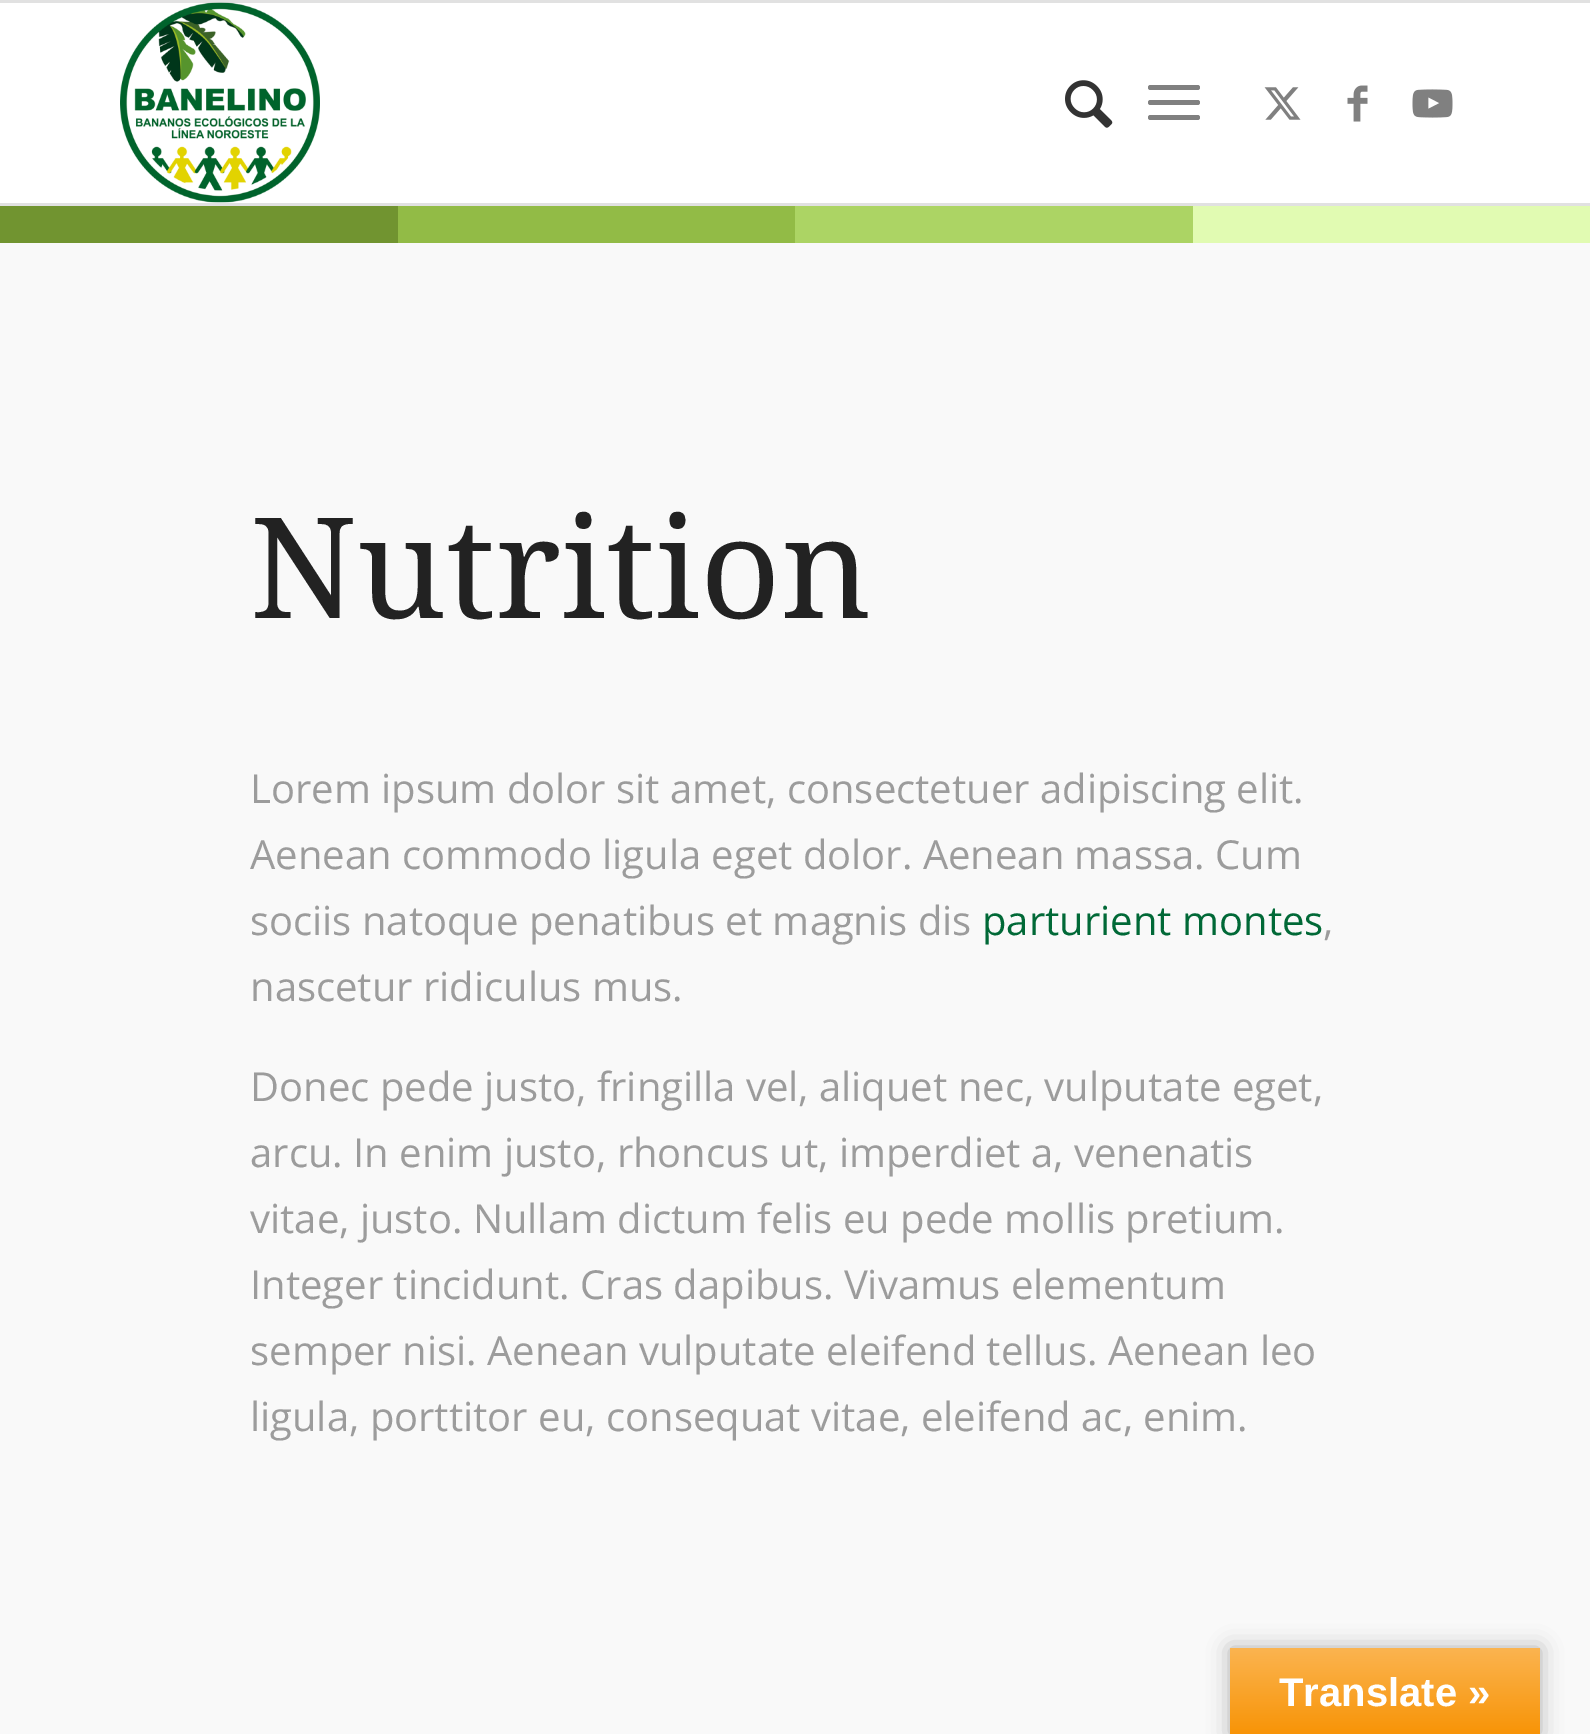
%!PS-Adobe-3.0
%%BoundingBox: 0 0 1590 1734
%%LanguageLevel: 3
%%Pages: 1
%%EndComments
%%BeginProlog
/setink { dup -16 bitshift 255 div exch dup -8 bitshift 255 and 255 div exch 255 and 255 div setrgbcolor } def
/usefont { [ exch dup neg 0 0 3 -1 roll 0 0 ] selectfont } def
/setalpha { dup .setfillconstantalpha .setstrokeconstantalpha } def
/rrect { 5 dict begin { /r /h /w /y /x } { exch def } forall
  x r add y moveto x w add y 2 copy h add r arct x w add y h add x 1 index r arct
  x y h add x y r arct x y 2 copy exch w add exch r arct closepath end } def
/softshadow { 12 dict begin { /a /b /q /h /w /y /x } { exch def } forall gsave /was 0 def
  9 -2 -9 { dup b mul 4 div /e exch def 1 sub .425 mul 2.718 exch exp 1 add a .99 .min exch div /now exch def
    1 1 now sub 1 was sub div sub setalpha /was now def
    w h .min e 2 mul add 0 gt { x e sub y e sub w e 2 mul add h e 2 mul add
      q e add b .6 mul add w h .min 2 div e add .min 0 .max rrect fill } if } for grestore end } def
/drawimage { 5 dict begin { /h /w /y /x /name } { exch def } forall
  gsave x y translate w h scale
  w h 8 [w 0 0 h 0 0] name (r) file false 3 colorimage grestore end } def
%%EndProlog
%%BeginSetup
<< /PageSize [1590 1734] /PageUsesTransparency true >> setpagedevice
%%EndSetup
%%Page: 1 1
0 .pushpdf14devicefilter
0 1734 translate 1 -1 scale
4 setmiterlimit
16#719430 setink
0 0 1590 1734 rectfill
[
    [0 0 1590 3 16#E1E1E1]
    [0 203 1590 3 16#E1E1E1]
    [0 3 1590 200 16#FFFFFF]
] { aload pop setink rectfill } forall
(img1.raw) 120 2 200 201 drawimage
(img2.raw) 1065 80 48 48 drawimage
16#808080 setink
1148 100 52 5 2.5 rrect fill
1148 85 52 5 2.5 rrect fill
1148 115 52 5 2.5 rrect fill
(img3.raw) 1264 87 37 33 drawimage
(img4.raw) 1347 85 21 37 drawimage
(img5.raw) 1412 89 41 29 drawimage
[
    [398 206 397 37 16#92BB46]
    [795 206 398 37 16#ACD464]
    [1193 206 397 37 16#E1FBB2]
    [0 243 1590 1491 16#F9F9F9]
] { aload pop setink rectfill } forall
/DroidSerif-Regular 140 usefont
16#222222 setink
250 618 moveto (Nutrition) show
/OpenSans-Regular 40 usefont
16#9C9C9C setink
[
    [(Lorem ipsum dolor sit amet, consectetuer adipiscing elit.) 250 803]
    [(Aenean commodo ligula eget dolor. Aenean massa. Cum) 250 869]
    [(sociis natoque penatibus et magnis dis) 250 935]
] { aload pop moveto show } forall
16#016937 setink
982 935 moveto (parturient montes) show
16#9C9C9C setink
[
    [(,) 1323 935]
    [(nascetur ridiculus mus.) 250 1001]
    [(Donec pede justo, fringilla vel, aliquet nec, vulputate eget,) 250 1101]
    [(arcu. In enim justo, rhoncus ut, imperdiet a, venenatis) 250 1167]
    [(vitae, justo. Nullam dictum felis eu pede mollis pretium.) 250 1233]
    [(Integer tincidunt. Cras dapibus. Vivamus elementum) 250 1299]
    [(semper nisi. Aenean vulputate eleifend tellus. Aenean leo) 250 1365]
    [(ligula, porttitor eu, consequat vitae, eleifend ac, enim.) 250 1431]
] { aload pop moveto show } forall
16#000000 setink
1230 1648 310 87 0 11 0.3 softshadow
gsave 1230 1648 moveto 1540 1648 lineto 1540 1734 lineto 1230 1734 lineto closepath clip newpath
<< /ShadingType 2 /ColorSpace /DeviceRGB /Coords [1385 1648 1385 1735] /Extend [true true] /Function << /FunctionType 2 /Domain [0 1] /C0 [0.984 0.706 0.314] /C1 [0.973 0.58 0.024] /N 1 >> >> shfill grestore
/LiberationSans-Bold 40 usefont
16#FFFFFF setink
1279 1706 moveto (Translate ») show
.poppdf14devicefilter showpage
%%EOF
